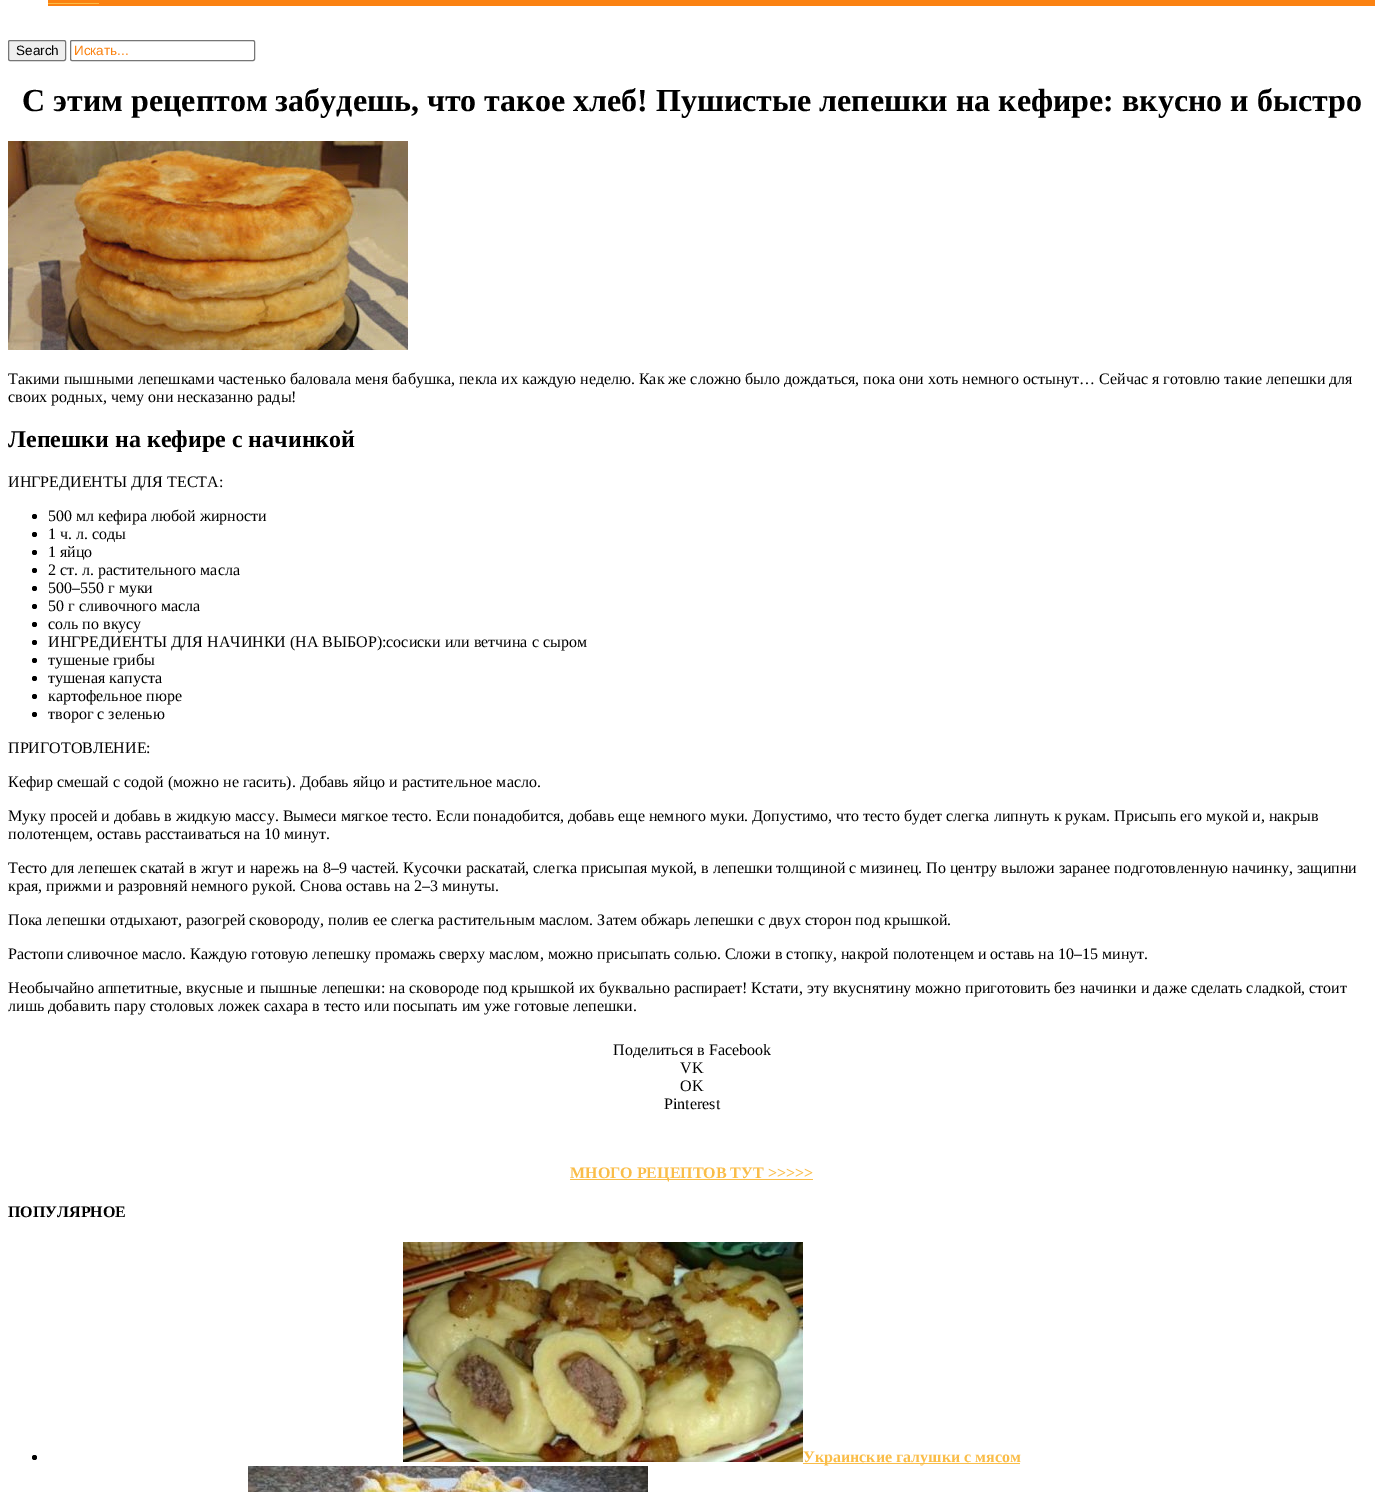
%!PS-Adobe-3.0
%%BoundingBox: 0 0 1383 1492
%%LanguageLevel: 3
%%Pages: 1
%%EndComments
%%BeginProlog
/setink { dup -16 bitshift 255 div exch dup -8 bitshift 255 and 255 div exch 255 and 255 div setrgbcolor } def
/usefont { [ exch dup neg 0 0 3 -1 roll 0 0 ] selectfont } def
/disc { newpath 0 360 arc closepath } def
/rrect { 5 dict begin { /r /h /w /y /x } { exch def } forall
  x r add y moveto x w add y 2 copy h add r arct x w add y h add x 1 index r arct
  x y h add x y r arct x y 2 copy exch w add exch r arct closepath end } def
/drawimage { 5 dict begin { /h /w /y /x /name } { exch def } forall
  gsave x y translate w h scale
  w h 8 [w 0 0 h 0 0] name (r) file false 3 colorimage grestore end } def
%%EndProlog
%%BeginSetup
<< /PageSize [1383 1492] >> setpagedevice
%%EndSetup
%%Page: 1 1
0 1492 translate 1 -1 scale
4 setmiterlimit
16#FFFFFF setink
0 0 1383 1492 rectfill
16#FB8211 setink
48 0 1327 6 rectfill
16#FABD48 setink
48 3 51 1 rectfill
16#EFEFEF setink
8.5 40.5 57 20 1.5 rrect gsave fill grestore
16#767676 setink
stroke
/LiberationSans-Regular 13.5 usefont
16#000000 setink
16 55 moveto (Search) show
16#767676 setink
70.5 40.5 184 20 1.5 rrect stroke
16#FB8211 setink
74 55 moveto (Искать...) show
/LiberationSerif-Bold 32 usefont
16#000000 setink
22 111 moveto (С этим рецептом забудешь, что такое хлеб! Пушистые лепешки на кефире: вкусно и быстро) show
(img1.raw) 8 141 400 209 drawimage
/LiberationSerif-Regular 16 usefont
8 384 moveto (Такими пышными лепешками частенько баловала меня бабушка, пекла их каждую неделю. Как же сложно было дождаться, пока они хоть немного остынут… Сейчас я готовлю такие лепешки для) show
8 402 moveto (своих родных, чему они несказанно рады!) show
/LiberationSerif-Bold 24 usefont
8 447 moveto (Лепешки на кефире с начинкой) show
/LiberationSerif-Regular 16 usefont
8 487 moveto (ИНГРЕДИЕНТЫ ДЛЯ ТЕСТА:) show
34.5 516.5 2.5 disc fill
48 521 moveto (500 мл кефира любой жирности) show
34.5 534.5 2.5 disc fill
48 539 moveto (1 ч. л. соды) show
34.5 552.5 2.5 disc fill
48 557 moveto (1 яйцо) show
34.5 570.5 2.5 disc fill
48 575 moveto (2 ст. л. растительного масла) show
34.5 588.5 2.5 disc fill
48 593 moveto (500–550 г муки) show
34.5 606.5 2.5 disc fill
48 611 moveto (50 г сливочного масла) show
34.5 624.5 2.5 disc fill
48 629 moveto (соль по вкусу) show
34.5 642.5 2.5 disc fill
48 647 moveto (ИНГРЕДИЕНТЫ ДЛЯ НАЧИНКИ \(НА ВЫБОР\):сосиски или ветчина с сыром) show
34.5 660.5 2.5 disc fill
48 665 moveto (тушеные грибы) show
34.5 678.5 2.5 disc fill
48 683 moveto (тушеная капуста) show
34.5 696.5 2.5 disc fill
48 701 moveto (картофельное пюре) show
34.5 714.5 2.5 disc fill
[
    [(творог с зеленью) 48 719]
    [(ПРИГОТОВЛЕНИЕ:) 8 753]
    [(Кефир смешай с содой \(можно не гасить\). Добавь яйцо и растительное масло.) 8 787]
    [(Муку просей и добавь в жидкую массу. Вымеси мягкое тесто. Если понадобится, добавь еще немного муки. Допустимо, что тесто будет слегка липнуть к рукам. Присыпь его мукой и, накрыв) 8 821]
    [(полотенцем, оставь расстаиваться на 10 минут.) 8 839]
    [(Тесто для лепешек скатай в жгут и нарежь на 8–9 частей. Кусочки раскатай, слегка присыпая мукой, в лепешки толщиной с мизинец. По центру выложи заранее подготовленную начинку, защипни) 8 873]
    [(края, прижми и разровняй немного рукой. Снова оставь на 2–3 минуты.) 8 891]
    [(Пока лепешки отдыхают, разогрей сковороду, полив ее слегка растительным маслом. Затем обжарь лепешки с двух сторон под крышкой.) 8 925]
    [(Растопи сливочное масло. Каждую готовую лепешку промажь сверху маслом, можно присыпать солью. Сложи в стопку, накрой полотенцем и оставь на 10–15 минут.) 8 959]
    [(Необычайно аппетитные, вкусные и пышные лепешки: на сковороде под крышкой их буквально распирает! Кстати, эту вкуснятину можно приготовить без начинки и даже сделать сладкой, стоит) 8 993]
    [(лишь добавить пару столовых ложек сахара в тесто или посыпать им уже готовые лепешки.) 8 1011]
    [(Поделиться в Facebook) 613 1055]
    [(VK) 680 1073]
    [(OK) 680 1091]
    [(Pinterest) 664 1109]
] { aload pop moveto show } forall
16#FABD48 setink
570 1179 243 1 rectfill
/LiberationSerif-Bold 16 usefont
570 1178 moveto (МНОГО РЕЦЕПТОВ ТУТ >>>>>) show
16#000000 setink
8 1217 moveto (ПОПУЛЯРНОЕ) show
34.5 1457.5 2.5 disc fill
(img2.raw) 403 1242 400 220 drawimage
16#FABD48 setink
803 1463 217 1 rectfill
803 1462 moveto (Украинские галушки с мясом) show
(img3.raw) 248 1466 400 26 drawimage
showpage
%%EOF
